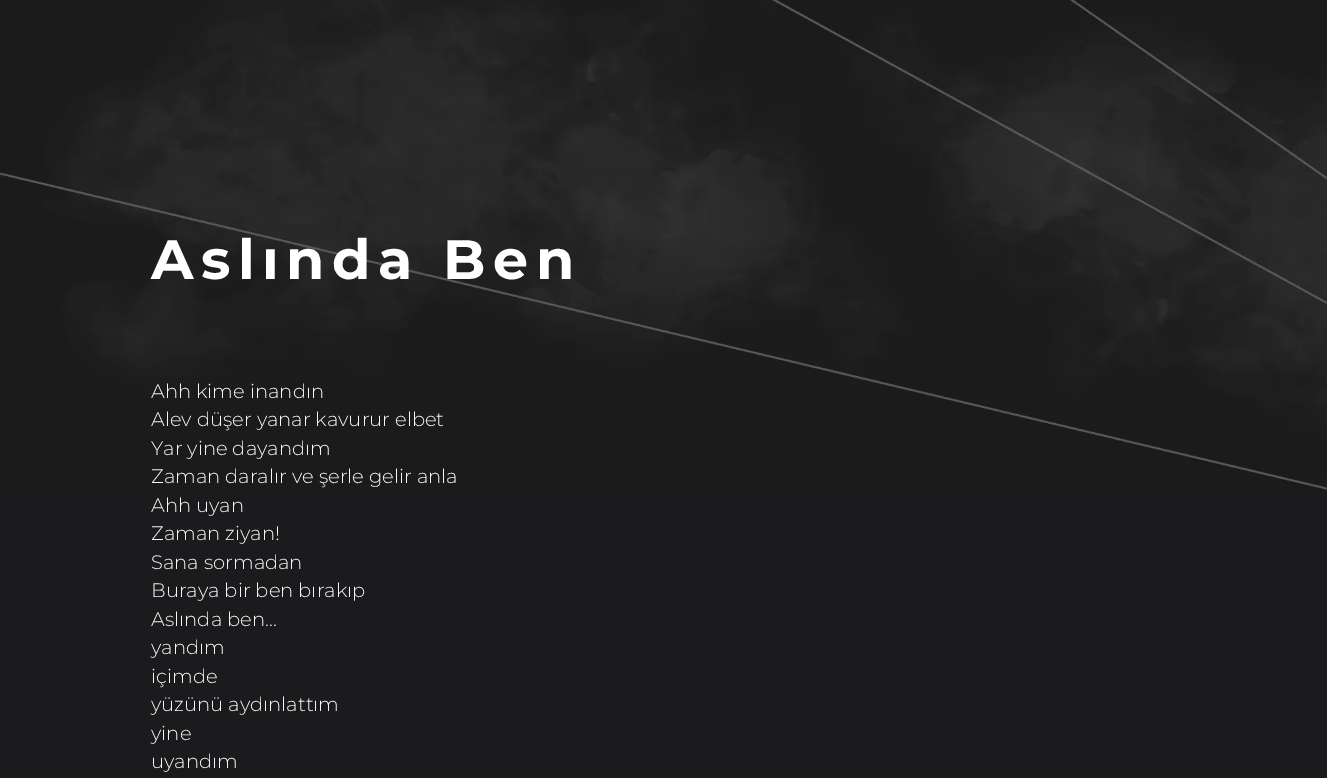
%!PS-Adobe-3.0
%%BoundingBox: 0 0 1327 778
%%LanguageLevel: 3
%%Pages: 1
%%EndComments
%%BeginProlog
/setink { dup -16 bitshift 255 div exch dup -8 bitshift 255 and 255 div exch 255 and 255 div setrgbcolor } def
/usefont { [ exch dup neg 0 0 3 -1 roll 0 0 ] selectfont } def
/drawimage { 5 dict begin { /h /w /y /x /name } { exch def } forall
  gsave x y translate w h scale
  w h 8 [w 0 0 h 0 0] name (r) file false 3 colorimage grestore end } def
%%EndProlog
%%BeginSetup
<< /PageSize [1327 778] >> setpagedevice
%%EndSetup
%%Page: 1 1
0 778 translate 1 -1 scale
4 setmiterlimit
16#1B1B1D setink
0 0 1327 778 rectfill
(img1.raw) 0 0 1327 490 drawimage
/Montserrat-Bold 55.5 usefont
16#FFFFFF setink
151 279 moveto 7.5 0 (Aslında Ben) ashow
/Montserrat-Light 19.5 usefont
16#F7F7F7 setink
[
    [(Ahh kime inandın) 151 398]
    [(Alev düşer yanar kavurur elbet) 151 426]
    [(Yar yine dayandım) 151 455]
    [(Zaman daralır ve şerle gelir anla) 151 483]
    [(Ahh uyan) 151 512]
    [(Zaman ziyan!) 151 540]
    [(Sana sormadan) 151 569]
    [(Buraya bir ben bırakıp) 151 597]
    [(Aslında ben...) 151 626]
    [(yandım) 151 654]
    [(içimde) 151 683]
    [(yüzünü aydınlattım) 151 711]
    [(yine) 151 740]
    [(uyandım) 151 768]
] { aload pop moveto show } forall
showpage
%%EOF
